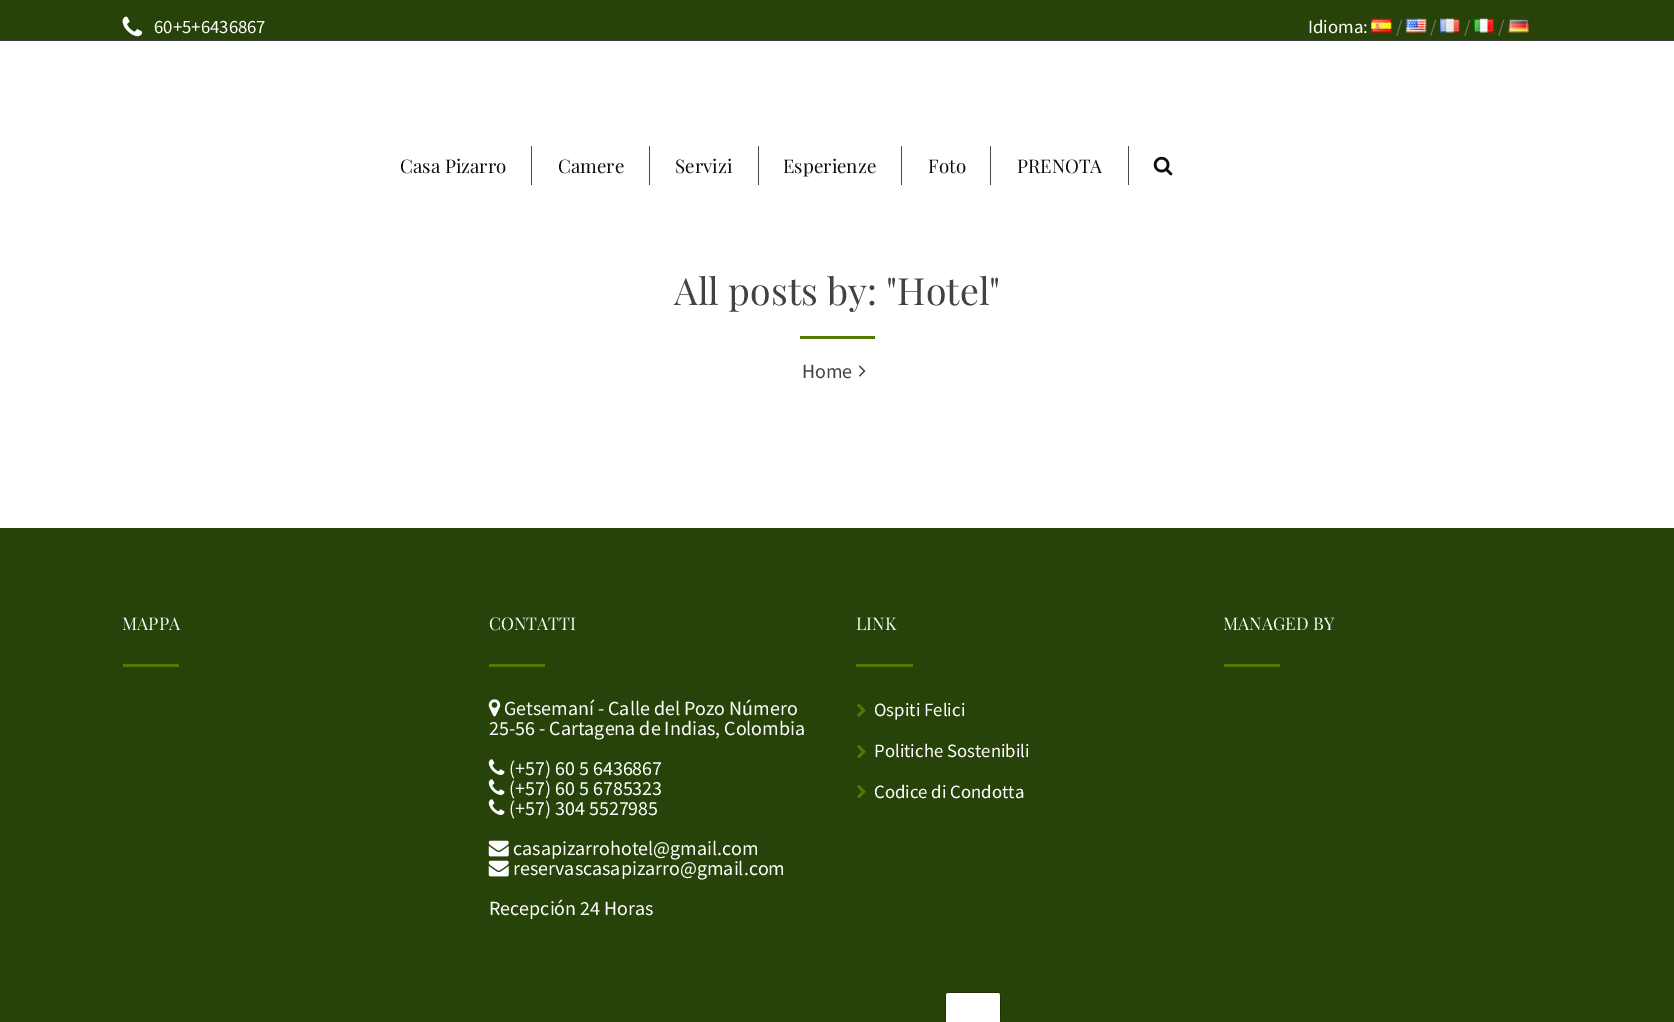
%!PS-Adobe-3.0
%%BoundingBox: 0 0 1674 1022
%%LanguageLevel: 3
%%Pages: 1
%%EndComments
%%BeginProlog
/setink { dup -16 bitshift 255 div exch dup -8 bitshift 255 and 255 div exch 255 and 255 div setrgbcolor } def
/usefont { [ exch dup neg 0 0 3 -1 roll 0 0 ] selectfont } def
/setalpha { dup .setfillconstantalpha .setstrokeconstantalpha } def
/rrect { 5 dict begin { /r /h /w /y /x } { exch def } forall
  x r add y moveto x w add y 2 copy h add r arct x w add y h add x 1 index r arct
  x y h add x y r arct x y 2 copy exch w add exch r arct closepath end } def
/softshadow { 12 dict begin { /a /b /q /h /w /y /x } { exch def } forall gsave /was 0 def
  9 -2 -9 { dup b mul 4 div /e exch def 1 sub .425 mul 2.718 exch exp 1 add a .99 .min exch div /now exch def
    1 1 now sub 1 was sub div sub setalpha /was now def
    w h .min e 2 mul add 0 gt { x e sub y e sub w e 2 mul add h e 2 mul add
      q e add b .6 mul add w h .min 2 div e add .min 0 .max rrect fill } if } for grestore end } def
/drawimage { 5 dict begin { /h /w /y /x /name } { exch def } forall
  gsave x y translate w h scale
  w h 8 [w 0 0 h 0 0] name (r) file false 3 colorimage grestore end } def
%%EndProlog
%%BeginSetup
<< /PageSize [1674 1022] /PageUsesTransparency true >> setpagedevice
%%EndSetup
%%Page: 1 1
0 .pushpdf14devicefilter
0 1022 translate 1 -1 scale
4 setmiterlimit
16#FFFFFF setink
0 0 1674 1022 rectfill
16#28430A setink
0 0 1674 40 rectfill
16#3B3B3B setink
0 40 1674 1 rectfill
(img1.raw) 122 16 21 21 drawimage
/SourceSansPro-Regular 18.75 usefont
16#FFFFFF setink
154 33 moveto (60+5+6436867) show
1308 33 moveto (Idioma:) show
(img2.raw) 1371 18 21 15 drawimage
16#737373 setink
1396 33 moveto (/) show
(img3.raw) 1406 18 21 15 drawimage
1430 33 moveto (/) show
(img4.raw) 1440 18 20 15 drawimage
1464 33 moveto (/) show
(img5.raw) 1473 18 21 15 drawimage
1498 33 moveto (/) show
(img6.raw) 1508 18 21 15 drawimage
16#484848 setink
531 146 1 39 rectfill
/PlayfairDisplay-Regular 18.75 usefont
16#0D0C0C setink
400 173 moveto (Casa Pizarro) show
16#484848 setink
649 146 1 39 rectfill
16#0D0C0C setink
558 173 moveto (Camere) show
16#484848 setink
758 146 1 39 rectfill
16#0D0C0C setink
675 173 moveto (Servizi) show
16#484848 setink
901 146 1 39 rectfill
16#0D0C0C setink
783 173 moveto (Esperienze) show
16#484848 setink
990 146 1 39 rectfill
16#0D0C0C setink
928 173 moveto (Foto) show
16#484848 setink
1128 146 1 39 rectfill
16#0D0C0C setink
1017 173 moveto (PRENOTA) show
(img7.raw) 1153 156 20 20 drawimage
/PlayfairDisplay-Regular 37.5 usefont
16#424242 setink
674 305 moveto (All posts by: "Hotel") show
16#507B00 setink
800 336 75 3 rectfill
/SourceSansPro-Regular 20 usefont
16#424242 setink
802 378 moveto (Home) show
(img8.raw) 858 365 8 12 drawimage
16#28430A setink
0 528 1674 494 rectfill
/PlayfairDisplay-Regular 17.5 usefont
16#FFFFFF setink
122 630 moveto (MAPPA) show
16#507B00 setink
123 664 56 3 rectfill
16#FFFFFF setink
489 630 moveto (CONTATTI) show
16#507B00 setink
489 664 56 3 rectfill
(img9.raw) 488 699 13 18 drawimage
/SourceSansPro-Regular 20 usefont
16#FFFFFF setink
504 715 moveto (Getsemaní - Calle del Pozo Número) show
489 735 moveto (25-56 - Cartagena de Indias, Colombia) show
(img10.raw) 488 759 17 16 drawimage
509 775 moveto (\(+57\) 60 5 6436867) show
(img10.raw) 488 779 17 16 drawimage
509 795 moveto (\(+57\) 60 5 6785323) show
(img10.raw) 488 799 17 16 drawimage
509 815 moveto (\(+57\) 304 5527985) show
(img11.raw) 488 840 21 17 drawimage
513 855 moveto (casapizarrohotel@gmail.com) show
(img11.raw) 488 860 21 17 drawimage
513 875 moveto (reservascasapizarro@gmail.com) show
489 915 moveto (Recepción 24 Horas) show
/PlayfairDisplay-Regular 17.5 usefont
856 630 moveto (LINK) show
16#507B00 setink
856 664 57 3 rectfill
(img12.raw) 857 703 9 14 drawimage
/SourceSansPro-Regular 18.75 usefont
16#FFFFFF setink
874 716 moveto (Ospiti Felici) show
(img13.raw) 857 745 9 14 drawimage
874 757 moveto (Politiche Sostenibili) show
(img13.raw) 857 785 9 14 drawimage
874 798 moveto (Codice di Condotta) show
/PlayfairDisplay-Regular 17.5 usefont
1223 630 moveto (MANAGED BY) show
16#507B00 setink
1224 664 56 3 rectfill
16#000000 setink
946 993 54 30 2.5 0.5 1 softshadow
16#FFFFFF setink
948.5 993 moveto 997.5 993 lineto 999 993 1000 994 1000 995.5 curveto 1000 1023 lineto 946 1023 lineto 946 995.5 lineto 946 994 947 993 948.5 993 curveto closepath fill
.poppdf14devicefilter showpage
%%EOF
